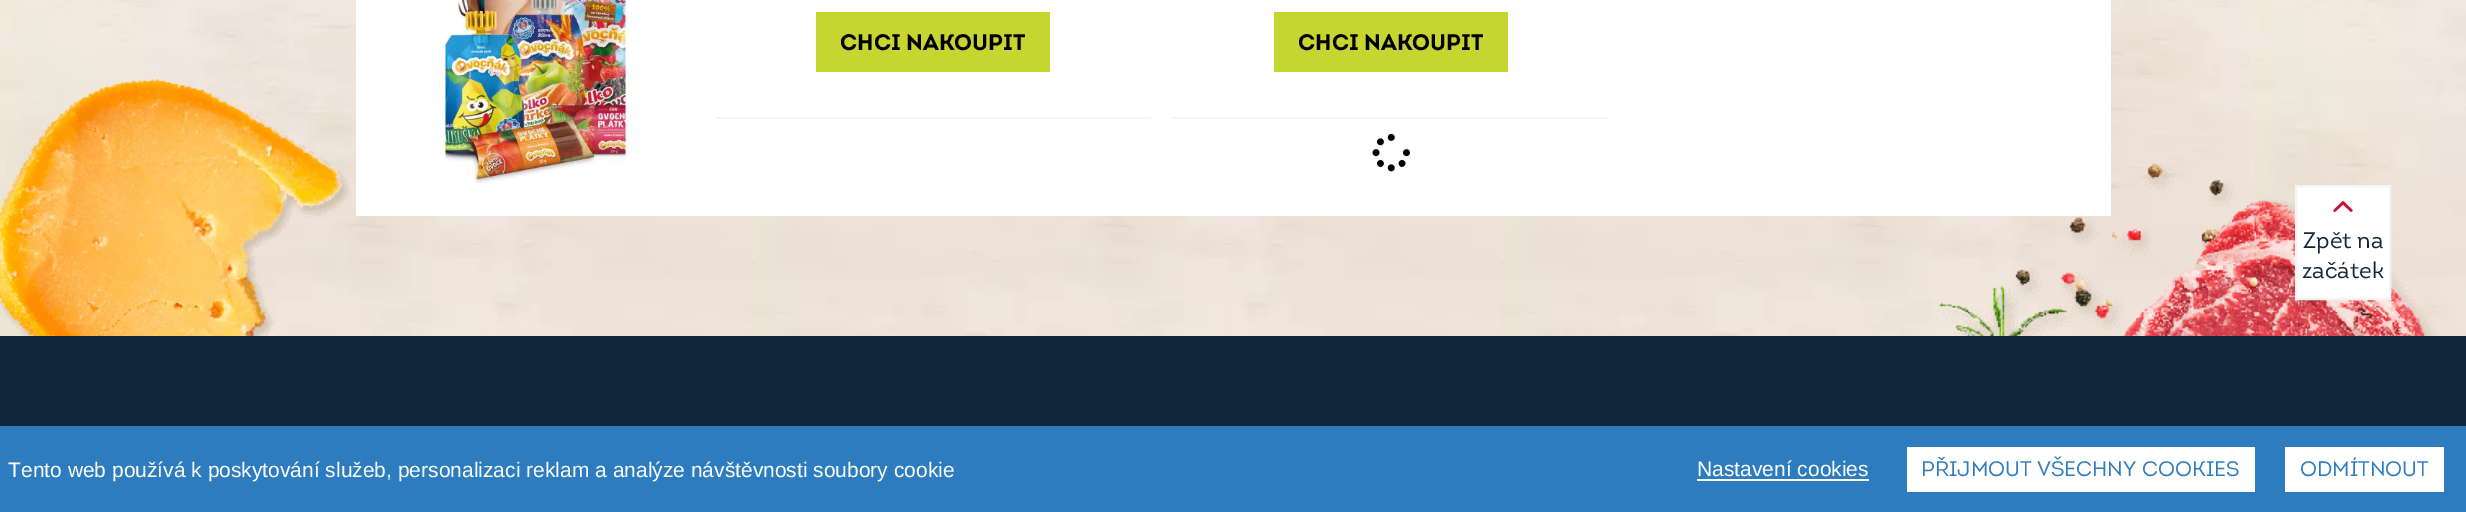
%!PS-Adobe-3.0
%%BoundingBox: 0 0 2466 512
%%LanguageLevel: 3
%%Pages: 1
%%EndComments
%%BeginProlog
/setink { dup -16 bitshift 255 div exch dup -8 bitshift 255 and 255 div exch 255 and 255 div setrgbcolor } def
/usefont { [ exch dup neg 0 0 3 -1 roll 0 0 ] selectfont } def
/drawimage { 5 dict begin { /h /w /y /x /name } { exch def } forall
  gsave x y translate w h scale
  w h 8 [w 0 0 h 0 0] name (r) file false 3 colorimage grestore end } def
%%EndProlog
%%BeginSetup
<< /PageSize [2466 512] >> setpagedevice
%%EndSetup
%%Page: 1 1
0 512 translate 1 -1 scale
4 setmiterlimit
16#FFFFFF setink
0 0 2466 512 rectfill
(img1.raw) 0 0 2466 336 drawimage
(img2.raw) 0 79 350 257 drawimage
(img6.raw) 1939 163 498 173 drawimage
356 0 1755 216 rectfill
(img3.raw) 445 0 181 183 drawimage
16#F3F5F7 setink
716 117 435 2 rectfill
16#C7D530 setink
816 12 234 60 rectfill
/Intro-Bold 22.5 usefont
16#000000 setink
840 50 moveto (CHCI NAKOUPIT) show
16#F3F5F7 setink
1173 117 435 2 rectfill
16#C7D530 setink
1274 12 234 60 rectfill
16#000000 setink
1298 50 moveto (CHCI NAKOUPIT) show
(img4.raw) 1372 133 38 39 drawimage
16#FFFFFF setink
2296 186 moveto 2390 186 lineto 2390 299 lineto 2296 299 lineto closepath gsave fill grestore
16#F3F5F7 setink
2 setlinewidth
stroke
(img5.raw) 2333 201 20 11 drawimage
/Intro-Regular 22.5 usefont
16#10263B setink
2303 248 moveto (Zpět na) show
2302 278 moveto (začátek) show
0 336 2466 90 rectfill
16#2C7CBF setink
0 426 2466 86 rectfill
/LiberationSans-Regular 21 usefont
16#FFFFFF setink
8 477 moveto (Tento web používá k poskytování služeb, personalizaci reklam a analýze návštěvnosti soubory cookie) show
1697 476 moveto (Nastavení cookies) show
1697 479 172 2 rectfill
1907 447 348 45 rectfill
/Intro-Regular 21 usefont
16#2C7CBF setink
1921 476 moveto (PŘIJMOUT VŠECHNY COOKIES) show
16#FFFFFF setink
2285 447 159 45 rectfill
16#2C7CBF setink
2300 476 moveto (ODMÍTNOUT) show
showpage
%%EOF
